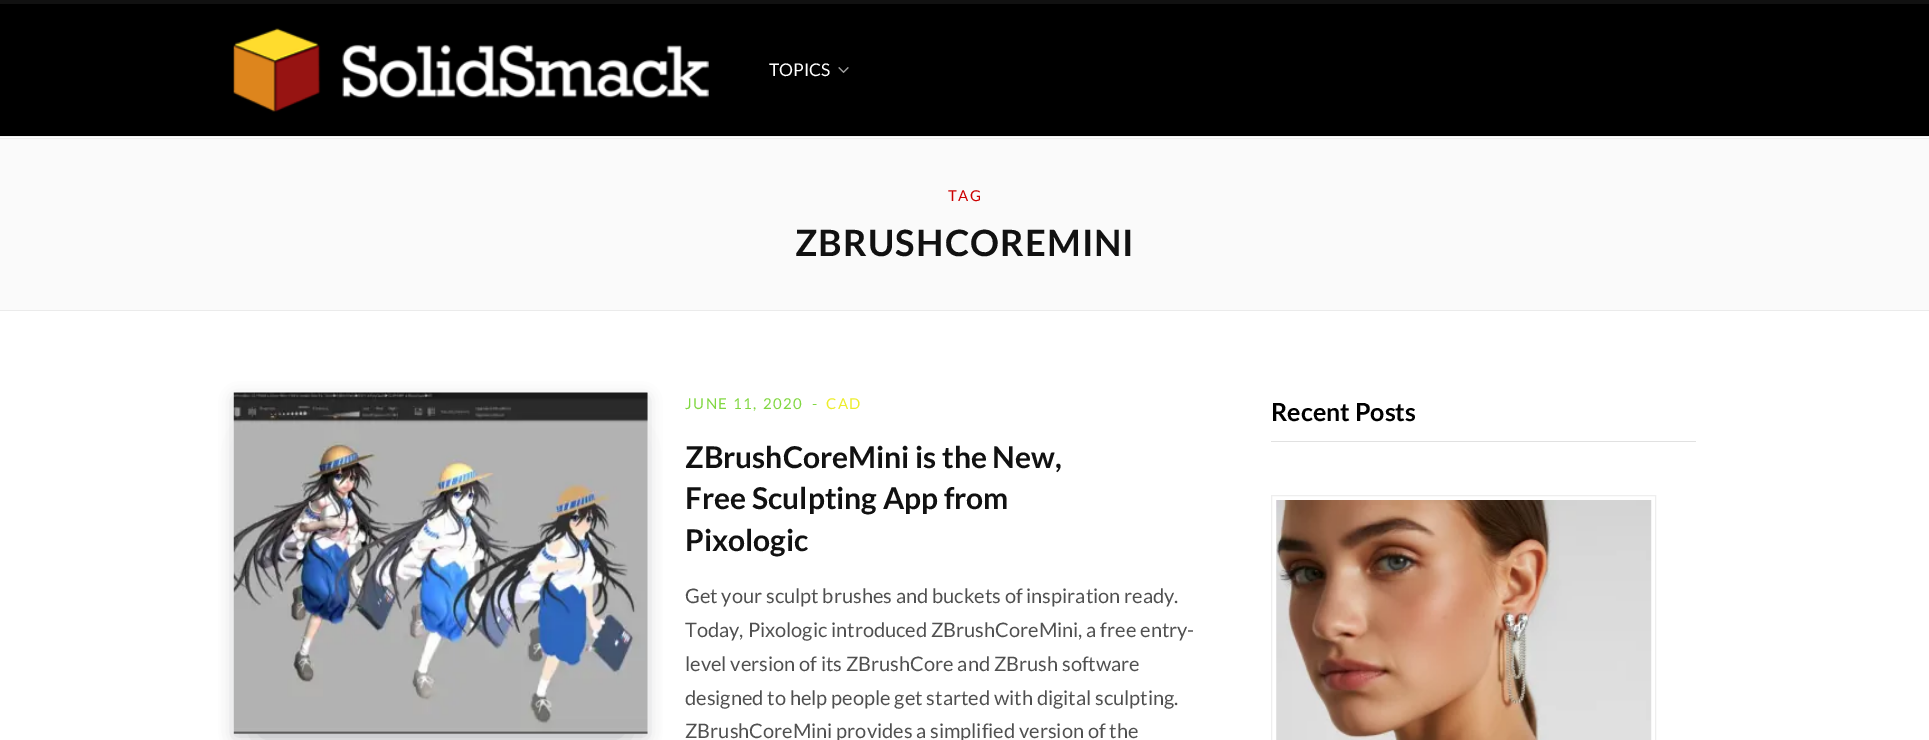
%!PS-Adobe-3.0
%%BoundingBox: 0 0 1929 740
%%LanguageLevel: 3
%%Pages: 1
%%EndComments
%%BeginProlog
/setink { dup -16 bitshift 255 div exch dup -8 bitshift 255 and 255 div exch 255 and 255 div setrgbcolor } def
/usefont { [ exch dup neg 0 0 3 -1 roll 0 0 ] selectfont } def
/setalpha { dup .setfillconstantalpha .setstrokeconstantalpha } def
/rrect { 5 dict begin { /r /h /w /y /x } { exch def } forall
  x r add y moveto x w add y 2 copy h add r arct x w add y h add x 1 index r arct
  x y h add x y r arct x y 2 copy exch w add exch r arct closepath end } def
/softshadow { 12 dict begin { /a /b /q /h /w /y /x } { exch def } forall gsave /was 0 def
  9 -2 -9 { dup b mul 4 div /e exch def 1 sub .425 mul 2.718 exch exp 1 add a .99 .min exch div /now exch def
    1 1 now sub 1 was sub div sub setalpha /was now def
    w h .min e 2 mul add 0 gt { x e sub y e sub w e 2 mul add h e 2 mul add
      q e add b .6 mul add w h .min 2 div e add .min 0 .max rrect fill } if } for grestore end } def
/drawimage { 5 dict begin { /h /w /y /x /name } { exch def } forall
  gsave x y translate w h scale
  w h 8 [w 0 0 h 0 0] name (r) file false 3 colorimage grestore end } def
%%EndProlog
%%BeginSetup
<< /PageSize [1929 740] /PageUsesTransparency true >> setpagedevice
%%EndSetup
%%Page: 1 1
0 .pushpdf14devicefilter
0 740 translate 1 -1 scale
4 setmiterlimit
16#FFFFFF setink
0 0 1929 740 rectfill
[
    [0 0 1929 4 16#111111]
    [0 136 1929 1 16#EFEFEF]
    [0 4 1929 132 16#000000]
] { aload pop setink rectfill } forall
(img1.raw) 233 28 476 84 drawimage
/Lato-Regular 17.5 usefont
16#FFFFFF setink
769 76 moveto (TOPICS) show
(img2.raw) 838 67 11 7 drawimage
[
    [0 139 1929 171 16#FAFAFA]
    [0 138 1929 1 16#EFEFEF]
    [0 310 1929 1 16#EBEBEB]
] { aload pop setink rectfill } forall
/Lato-Regular 15 usefont
16#CC0000 setink
948 201 moveto 1.5 0 (TAG) ashow
/Lato-Bold 36.25 usefont
16#111111 setink
795 256 moveto 1.1 0 (ZBRUSHCOREMINI) ashow
16#070A19 setink
259 445 364 291 0 17 0.2 softshadow
235 398 411 338 0 7.5 0.2 softshadow
(img3.raw) 233 392 415 342 drawimage
/Lato-Regular 15 usefont
16#81D742 setink
685 409 moveto 1.5 0 (JUNE 11, 2020) ashow
812 409 moveto (-) show
16#EDED2A setink
826 409 moveto 1.5 0 (CAD) ashow
/Lato-Bold 30 usefont
16#111111 setink
[
    [(ZBrushCoreMini is the New,) 685 468]
    [(Free Sculpting App from) 685 509]
    [(Pixologic) 685 551]
] { aload pop moveto show } forall
/Lato-Regular 20 usefont
16#505050 setink
[
    [(Get your sculpt brushes and buckets of inspiration ready.) 685 603]
    [(Today, Pixologic introduced ZBrushCoreMini, a free entry-) 685 637]
    [(level version of its ZBrushCore and ZBrush software) 685 671]
    [(designed to help people get started with digital sculpting.) 685 705]
    [(ZBrushCoreMini provides a simplified version of the) 685 738]
] { aload pop moveto show } forall
16#E1E1E1 setink
1271 441 425 1 rectfill
/Lato-Bold 25 usefont
16#000000 setink
1271 421 moveto (Recent Posts) show
16#EEEEEE setink
1271.5 495.5 384 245 rectstroke
(img4.raw) 1276 500 376 240 drawimage
.poppdf14devicefilter showpage
%%EOF
